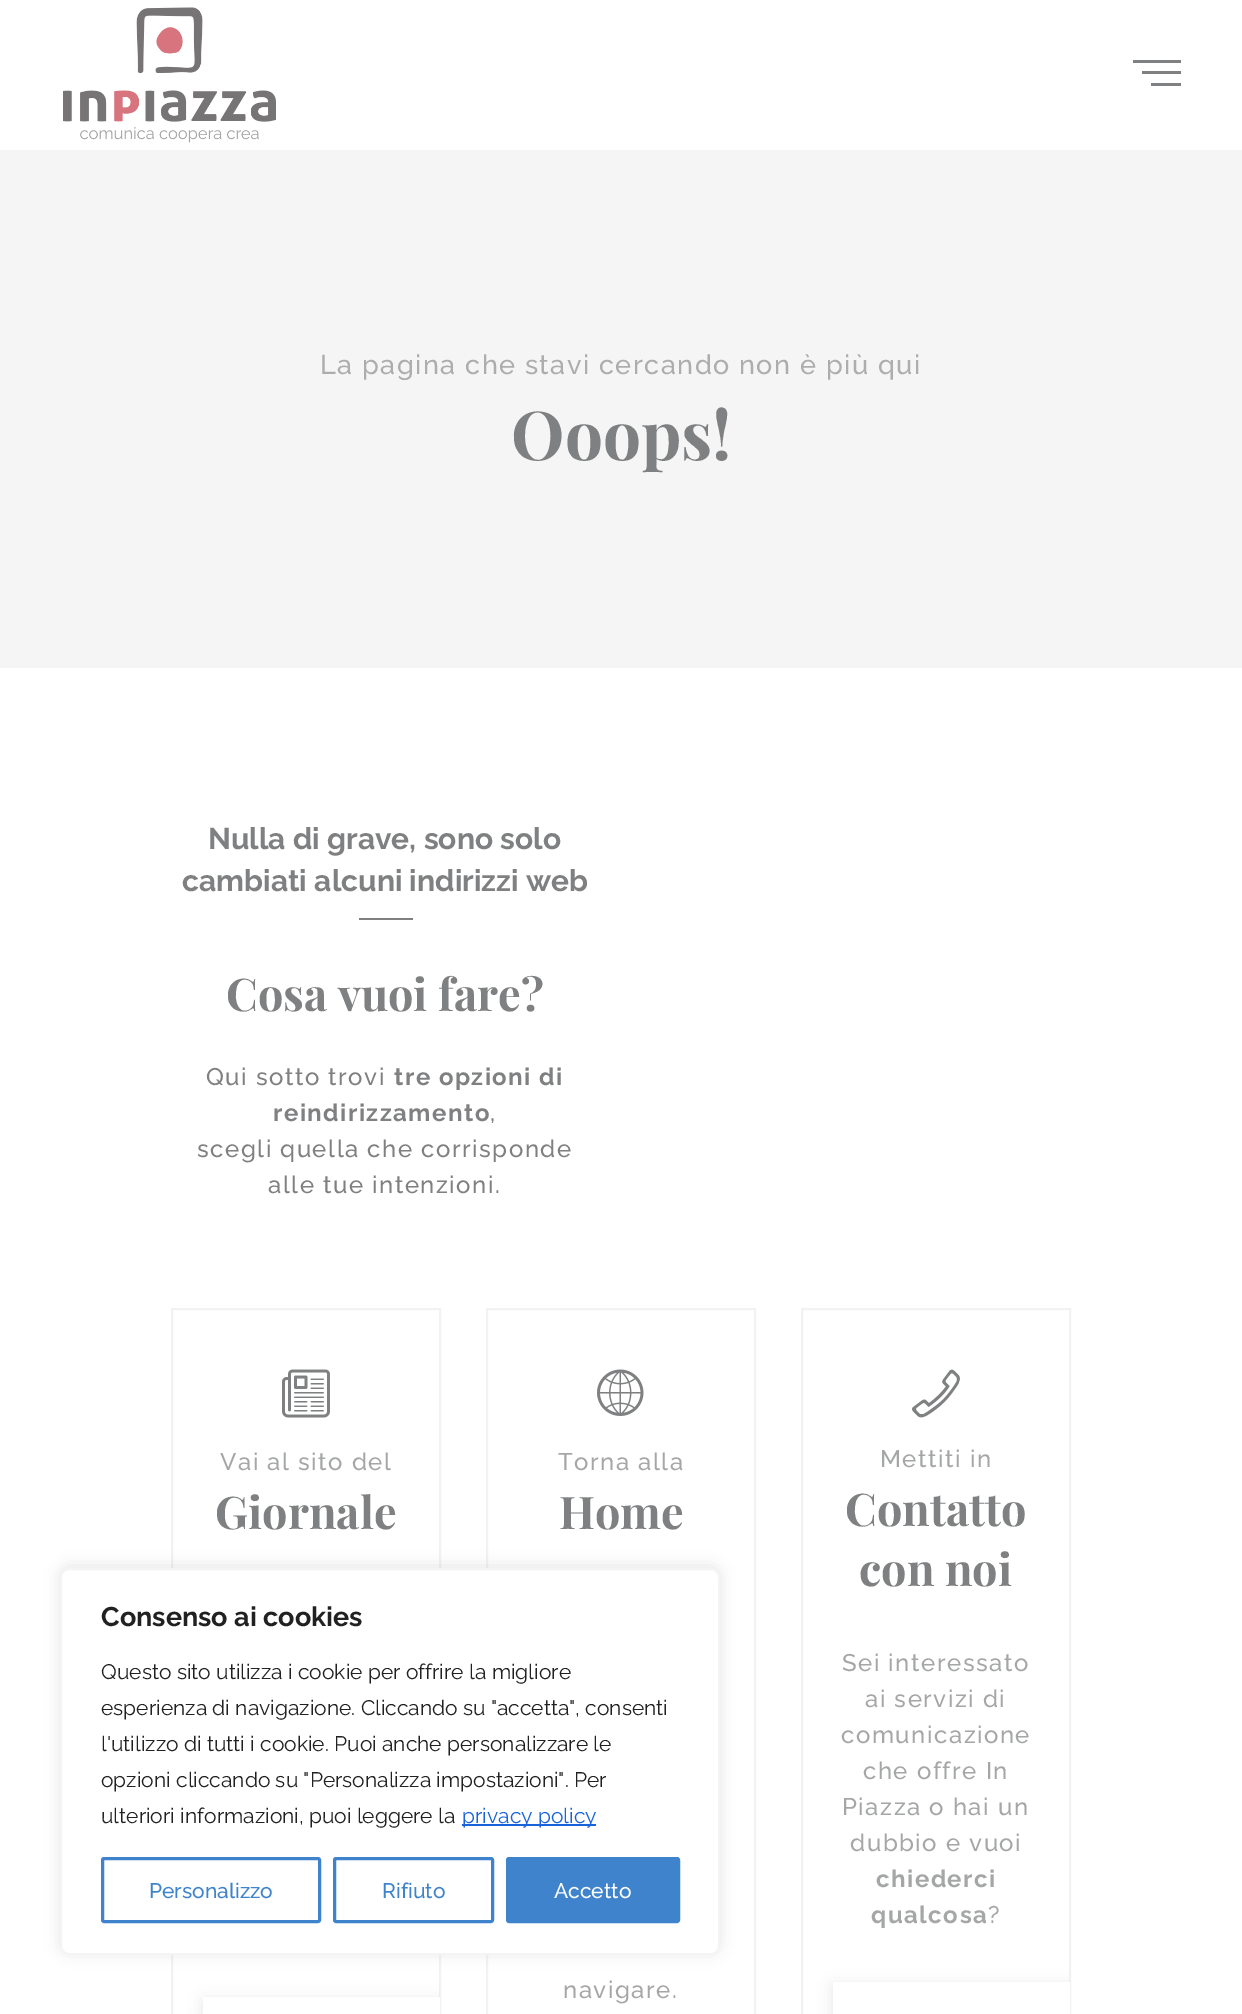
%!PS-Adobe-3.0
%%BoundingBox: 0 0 1242 2014
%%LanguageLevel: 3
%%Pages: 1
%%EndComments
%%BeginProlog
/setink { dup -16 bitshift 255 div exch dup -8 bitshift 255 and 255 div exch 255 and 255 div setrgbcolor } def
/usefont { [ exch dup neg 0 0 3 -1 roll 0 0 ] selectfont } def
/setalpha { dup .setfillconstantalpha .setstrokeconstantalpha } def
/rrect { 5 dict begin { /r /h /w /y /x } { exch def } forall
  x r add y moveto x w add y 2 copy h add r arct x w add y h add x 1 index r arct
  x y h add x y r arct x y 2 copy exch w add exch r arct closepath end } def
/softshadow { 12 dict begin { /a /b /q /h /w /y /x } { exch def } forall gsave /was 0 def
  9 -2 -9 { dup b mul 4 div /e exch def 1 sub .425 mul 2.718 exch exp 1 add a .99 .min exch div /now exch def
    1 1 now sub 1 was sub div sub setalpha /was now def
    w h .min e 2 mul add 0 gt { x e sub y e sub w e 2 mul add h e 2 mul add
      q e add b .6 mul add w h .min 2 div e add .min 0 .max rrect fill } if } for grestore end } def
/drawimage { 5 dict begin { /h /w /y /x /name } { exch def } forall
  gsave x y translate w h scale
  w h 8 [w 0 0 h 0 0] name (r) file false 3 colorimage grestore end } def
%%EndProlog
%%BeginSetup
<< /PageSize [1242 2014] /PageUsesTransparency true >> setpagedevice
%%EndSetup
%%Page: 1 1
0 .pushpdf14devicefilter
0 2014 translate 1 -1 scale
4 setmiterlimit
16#FFFFFF setink
0 0 1242 2014 rectfill
(img1.raw) 63 7 213 136 drawimage
[
    [1133 60 48 3 16#7F8081]
    [1142 71 39 3 16#7F8081]
    [1151 83 30 3 16#7F8081]
    [0 150 1242 518 16#F5F5F5]
] { aload pop setink rectfill } forall
/Raleway-Medium 27 usefont
16#ADADAD setink
320 374 moveto 1.5 0 (La pagina che stavi cercando non è più qui) ashow
/PlayfairDisplay-Bold 67.5 usefont
16#7F8081 setink
511 460 moveto (Ooops!) show
/Raleway-Bold 30 usefont
208 849 moveto (Nulla di grave, sono solo) show
182 891 moveto (cambiati alcuni indirizzi web) show
359 918 54 2 rectfill
/PlayfairDisplay-Bold 45 usefont
226 1011 moveto (Cosa vuoi fare?) show
/Raleway-Medium 24 usefont
206 1085 moveto 1.5 0 (Qui sotto trovi) ashow
/Raleway-Bold 24 usefont
394 1085 moveto 1.5 0 (tre opzioni di) ashow
273 1121 moveto 1.5 0 (reindirizzamento) ashow
/Raleway-Medium 24 usefont
490 1121 moveto 1.5 0 (,) ashow
197 1157 moveto 1.5 0 (scegli quella che corrisponde) ashow
268 1193 moveto 1.5 0 (alle tue intenzioni.) ashow
16#F2F2F2 setink
2 setlinewidth
172 1309 268 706 rectstroke
(img2.raw) 282 1369 48 49 drawimage
16#A5A6A6 setink
220 1470 moveto 1.5 0 (Vai al sito del) ashow
/PlayfairDisplay-Bold 45 usefont
16#7F8081 setink
215 1529 moveto (Giornale) show
gsave
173 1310 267 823 rectclip
16#616161 setink
203 2001 357 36 0 7.5 0.15 softshadow
grestore
16#FFFFFF setink
203 1997 237 17 rectfill
16#F2F2F2 setink
487 1309 268 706 rectstroke
(img3.raw) 597 1369 47 47 drawimage
/Raleway-Medium 24 usefont
16#A5A6A6 setink
558 1470 moveto 1.5 0 (Torna alla) ashow
/PlayfairDisplay-Bold 45 usefont
16#7F8081 setink
559 1529 moveto (Home) show
/Raleway-Medium 24 usefont
16#A5A6A6 setink
563 1998 moveto 1.5 0 (navigare.) ashow
16#F2F2F2 setink
802 1309 268 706 rectstroke
(img4.raw) 912 1369 48 49 drawimage
16#A5A6A6 setink
880 1467 moveto 1.5 0 (Mettiti in) ashow
/PlayfairDisplay-Bold 45 usefont
16#7F8081 setink
845 1526 moveto (Contatto) show
859 1586 moveto (con noi) show
/Raleway-Medium 24 usefont
16#A5A6A6 setink
842 1671 moveto 1.5 0 (Sei interessato) ashow
865 1707 moveto 1.5 0 (ai servizi di) ashow
841 1743 moveto 1.5 0 (comunicazione) ashow
863 1779 moveto 1.5 0 (che offre In) ashow
842 1815 moveto 1.5 0 (Piazza o hai un) ashow
850 1851 moveto 1.5 0 (dubbio e vuoi) ashow
/Raleway-Bold 24 usefont
876 1887 moveto 1.5 0 (chiederci) ashow
871 1923 moveto 1.5 0 (qualcosa) ashow
/Raleway-Medium 24 usefont
988 1923 moveto 1.5 0 (?) ashow
gsave
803 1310 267 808 rectclip
16#616161 setink
833 1986 289 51 0 7.5 0.15 softshadow
grestore
16#FFFFFF setink
833 1982 237 32 rectfill
16#ACABAB setink
60 1566 660 387 9 7.5 0.3 softshadow
16#FFFFFF setink
61 1569 658 385 8 rrect gsave fill grestore
16#F4F4F4 setink
stroke
/Raleway-Bold 27 usefont
16#212121 setink
101 1626 moveto (Consenso ai cookies) show
/Raleway-Regular 21 usefont
[
    [(Questo sito utilizza i cookie per offrire la migliore) 101 1679]
    [(esperienza di navigazione. Cliccando su "accetta", consenti) 101 1715]
    [(l'utilizzo di tutti i cookie. Puoi anche personalizzare le) 101 1751]
    [(opzioni cliccando su "Personalizza impostazioni". Per) 101 1787]
    [(ulteriori informazioni, puoi leggere la) 101 1823]
] { aload pop moveto show } forall
16#1863DC setink
462 1824 134 2 rectfill
462 1823 moveto (privacy policy) show
16#3F83CC setink
3 setlinewidth
102.5 1858.5 217 63 1.5 rrect stroke
/Raleway-Medium 21 usefont
149 1898 moveto (Personalizzo) show
334.5 1858.5 158 63 1.5 rrect stroke
382 1898 moveto (Rifiuto) show
507.5 1858.5 171 63 1.5 rrect gsave fill grestore
stroke
16#FFFFFF setink
554 1898 moveto (Accetto) show
.poppdf14devicefilter showpage
%%EOF
